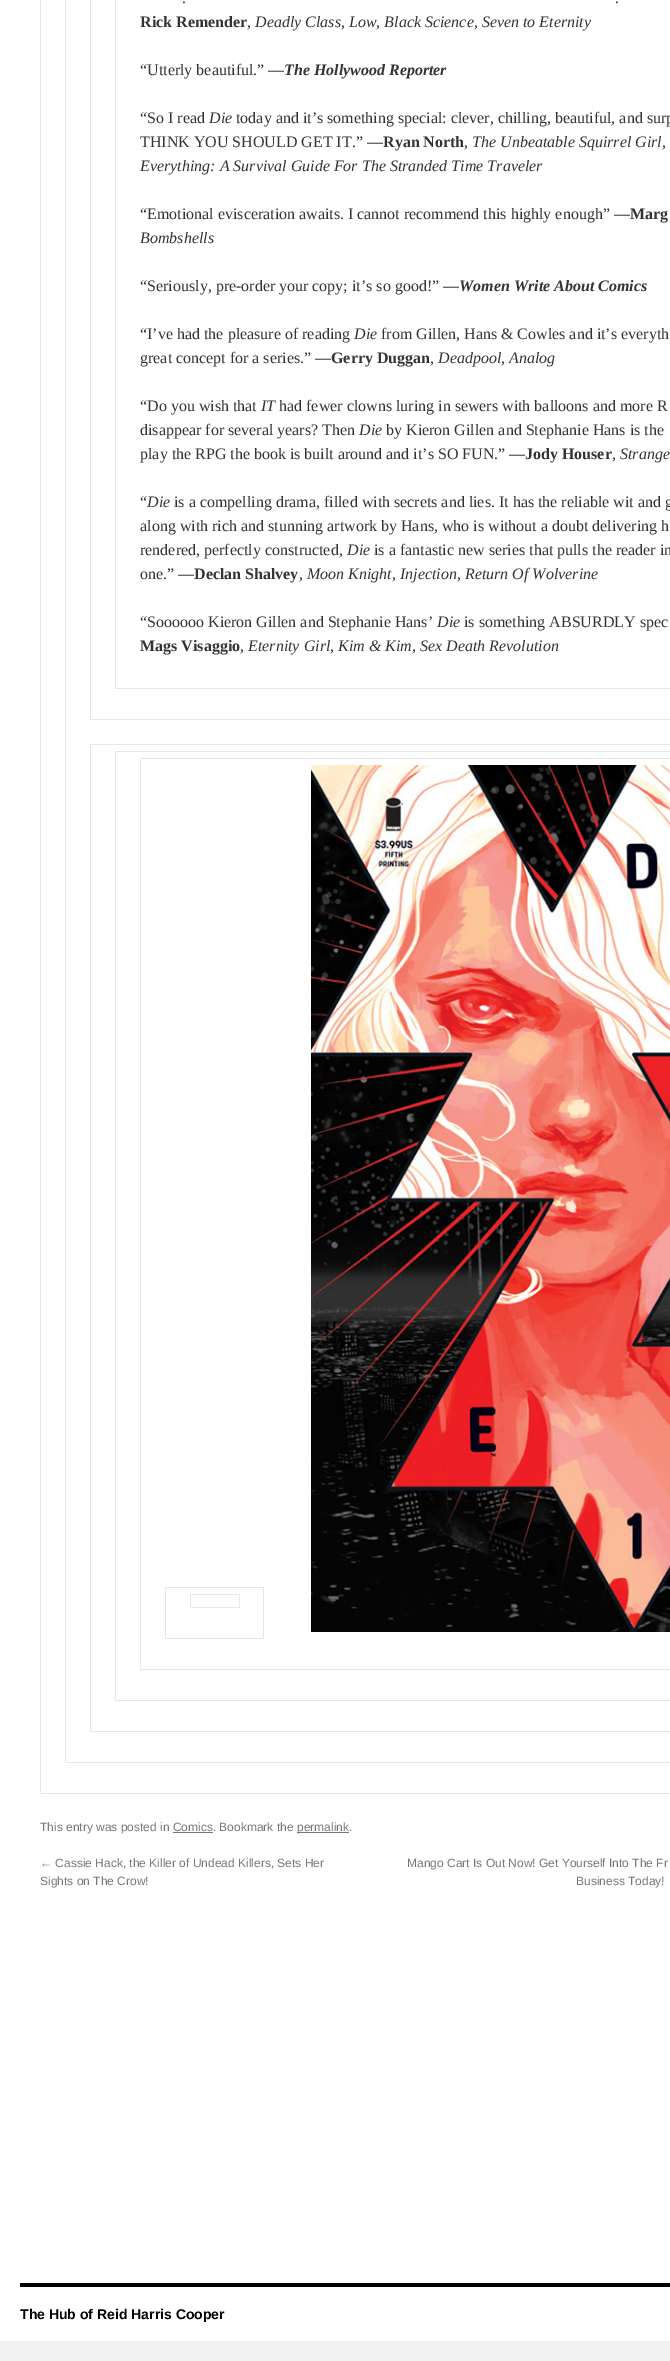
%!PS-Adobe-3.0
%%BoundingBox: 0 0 670 2361
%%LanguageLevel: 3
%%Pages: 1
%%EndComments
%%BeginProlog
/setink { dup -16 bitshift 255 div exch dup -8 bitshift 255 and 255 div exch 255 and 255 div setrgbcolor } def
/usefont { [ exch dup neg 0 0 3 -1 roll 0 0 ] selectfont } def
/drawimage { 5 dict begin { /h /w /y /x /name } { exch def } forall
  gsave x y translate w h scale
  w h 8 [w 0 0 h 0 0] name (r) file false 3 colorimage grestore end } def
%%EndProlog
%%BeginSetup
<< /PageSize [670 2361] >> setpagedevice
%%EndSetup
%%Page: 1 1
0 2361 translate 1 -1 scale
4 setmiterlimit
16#F1F1F1 setink
0 0 670 2361 rectfill
[
    [0 0 670 2341 16#FFFFFF]
    [40 1793 630 1 16#E7E7E7]
    [40 0 1 1794 16#E7E7E7]
    [65 1762 605 1 16#E7E7E7]
    [65 0 1 1763 16#E7E7E7]
    [90 719 580 1 16#E7E7E7]
    [90 0 1 720 16#E7E7E7]
    [115 688 555 1 16#E7E7E7]
    [115 0 1 689 16#E7E7E7]
] { aload pop setink rectfill } forall
/LiberationSerif-Regular 16 usefont
16#333333 setink
182 3 moveto (.) show
615 3 moveto (.) show
/LiberationSerif-Bold 16 usefont
140 27 moveto (Rick Remender) show
/LiberationSerif-Regular 16 usefont
247 27 moveto (,) show
/LiberationSerif-Italic 16 usefont
255 27 moveto (Deadly Class, Low, Black Science, Seven to Eternity) show
/LiberationSerif-Regular 16 usefont
140 75 moveto (“Utterly beautiful.” —) show
/LiberationSerif-BoldItalic 16 usefont
284 75 moveto (The Hollywood Reporter) show
/LiberationSerif-Regular 16 usefont
140 123 moveto (“So I read) show
/LiberationSerif-Italic 16 usefont
209 123 moveto (Die) show
/LiberationSerif-Regular 16 usefont
236 123 moveto (today and it’s something special: clever, chilling, beautiful, and surp) show
140 147 moveto (THINK YOU SHOULD GET IT.” —) show
/LiberationSerif-Bold 16 usefont
383 147 moveto (Ryan North) show
/LiberationSerif-Regular 16 usefont
464 147 moveto (,) show
/LiberationSerif-Italic 16 usefont
472 147 moveto (The Unbeatable Squirrel Girl,) show
140 171 moveto (Everything: A Survival Guide For The Stranded Time Traveler) show
/LiberationSerif-Regular 16 usefont
140 219 moveto (“Emotional evisceration awaits. I cannot recommend this highly enough” —) show
/LiberationSerif-Bold 16 usefont
630 219 moveto (Marg) show
/LiberationSerif-Italic 16 usefont
140 243 moveto (Bombshells) show
/LiberationSerif-Regular 16 usefont
140 291 moveto (“Seriously, pre-order your copy; it’s so good!” —) show
/LiberationSerif-BoldItalic 16 usefont
459 291 moveto (Women Write About Comics) show
/LiberationSerif-Regular 16 usefont
140 339 moveto (“I’ve had the pleasure of reading) show
/LiberationSerif-Italic 16 usefont
354 339 moveto (Die) show
/LiberationSerif-Regular 16 usefont
381 339 moveto (from Gillen, Hans & Cowles and it’s everyth) show
140 363 moveto (great concept for a series.” —) show
/LiberationSerif-Bold 16 usefont
331 363 moveto (Gerry Duggan) show
/LiberationSerif-Regular 16 usefont
430 363 moveto (,) show
/LiberationSerif-Italic 16 usefont
438 363 moveto (Deadpool, Analog) show
/LiberationSerif-Regular 16 usefont
140 411 moveto (“Do you wish that) show
/LiberationSerif-Italic 16 usefont
261 411 moveto (IT) show
/LiberationSerif-Regular 16 usefont
279 411 moveto (had fewer clowns luring in sewers with balloons and more R) show
140 435 moveto (disappear for several years? Then) show
/LiberationSerif-Italic 16 usefont
359 435 moveto (Die) show
/LiberationSerif-Regular 16 usefont
386 435 moveto (by Kieron Gillen and Stephanie Hans is the) show
140 459 moveto (play the RPG the book is built around and it’s SO FUN.” —) show
/LiberationSerif-Bold 16 usefont
525 459 moveto (Jody Houser) show
/LiberationSerif-Regular 16 usefont
612 459 moveto (,) show
/LiberationSerif-Italic 16 usefont
620 459 moveto (Strange) show
/LiberationSerif-Regular 16 usefont
140 507 moveto (“) show
/LiberationSerif-Italic 16 usefont
147 507 moveto (Die) show
/LiberationSerif-Regular 16 usefont
[
    [(is a compelling drama, filled with secrets and lies. It has the reliable wit and g) 174 507]
    [(along with rich and stunning artwork by Hans, who is without a doubt delivering h) 140 531]
    [(rendered, perfectly constructed,) 140 555]
] { aload pop moveto show } forall
/LiberationSerif-Italic 16 usefont
347 555 moveto (Die) show
/LiberationSerif-Regular 16 usefont
374 555 moveto (is a fantastic new series that pulls the reader in) show
140 579 moveto (one.” —) show
/LiberationSerif-Bold 16 usefont
194 579 moveto (Declan Shalvey) show
/LiberationSerif-Regular 16 usefont
299 579 moveto (,) show
/LiberationSerif-Italic 16 usefont
307 579 moveto (Moon Knight, Injection, Return Of Wolverine) show
/LiberationSerif-Regular 16 usefont
140 627 moveto (“Soooooo Kieron Gillen and Stephanie Hans’) show
/LiberationSerif-Italic 16 usefont
437 627 moveto (Die) show
/LiberationSerif-Regular 16 usefont
464 627 moveto (is something ABSURDLY spec) show
/LiberationSerif-Bold 16 usefont
140 651 moveto (Mags Visaggio) show
/LiberationSerif-Regular 16 usefont
240 651 moveto (,) show
/LiberationSerif-Italic 16 usefont
248 651 moveto (Eternity Girl, Kim & Kim, Sex Death Revolution) show
[
    [90 744 580 1 16#E7E7E7]
    [90 1731 580 1 16#E7E7E7]
    [90 744 1 988 16#E7E7E7]
    [115 751 555 1 16#E7E7E7]
    [115 1700 555 1 16#E7E7E7]
    [115 751 1 950 16#E7E7E7]
    [140 758 530 1 16#E7E7E7]
    [140 1669 530 1 16#E7E7E7]
    [140 758 1 912 16#E7E7E7]
    [165 1587 99 1 16#E7E7E7]
    [263 1587 1 52 16#E7E7E7]
    [165 1638 99 1 16#E7E7E7]
    [165 1587 1 52 16#E7E7E7]
    [190 1594 50 1 16#E7E7E7]
    [239 1594 1 14 16#E7E7E7]
    [190 1607 50 1 16#E7E7E7]
    [190 1594 1 14 16#E7E7E7]
] { aload pop setink rectfill } forall
(img1.raw) 311 765 359 867 drawimage
/LiberationSans-Regular 12 usefont
16#777777 setink
40 1831 moveto (This entry was posted in Comics. Bookmark the) show
297 1832 52 1 rectfill
297 1831 moveto (permalink.) show
173 1832 40 1 rectfill
[
    [(← Cassie Hack, the Killer of Undead Killers, Sets Her) 40 1867]
    [(Sights on The Crow!) 40 1885]
    [(Mango Cart Is Out Now! Get Yourself Into The Fr) 407 1867]
    [(Business Today!) 576 1885]
] { aload pop moveto show } forall
16#000000 setink
20 2283 650 4 rectfill
/LiberationSans-Bold 14 usefont
20 2319 moveto (The Hub of Reid Harris Cooper) show
showpage
%%EOF
